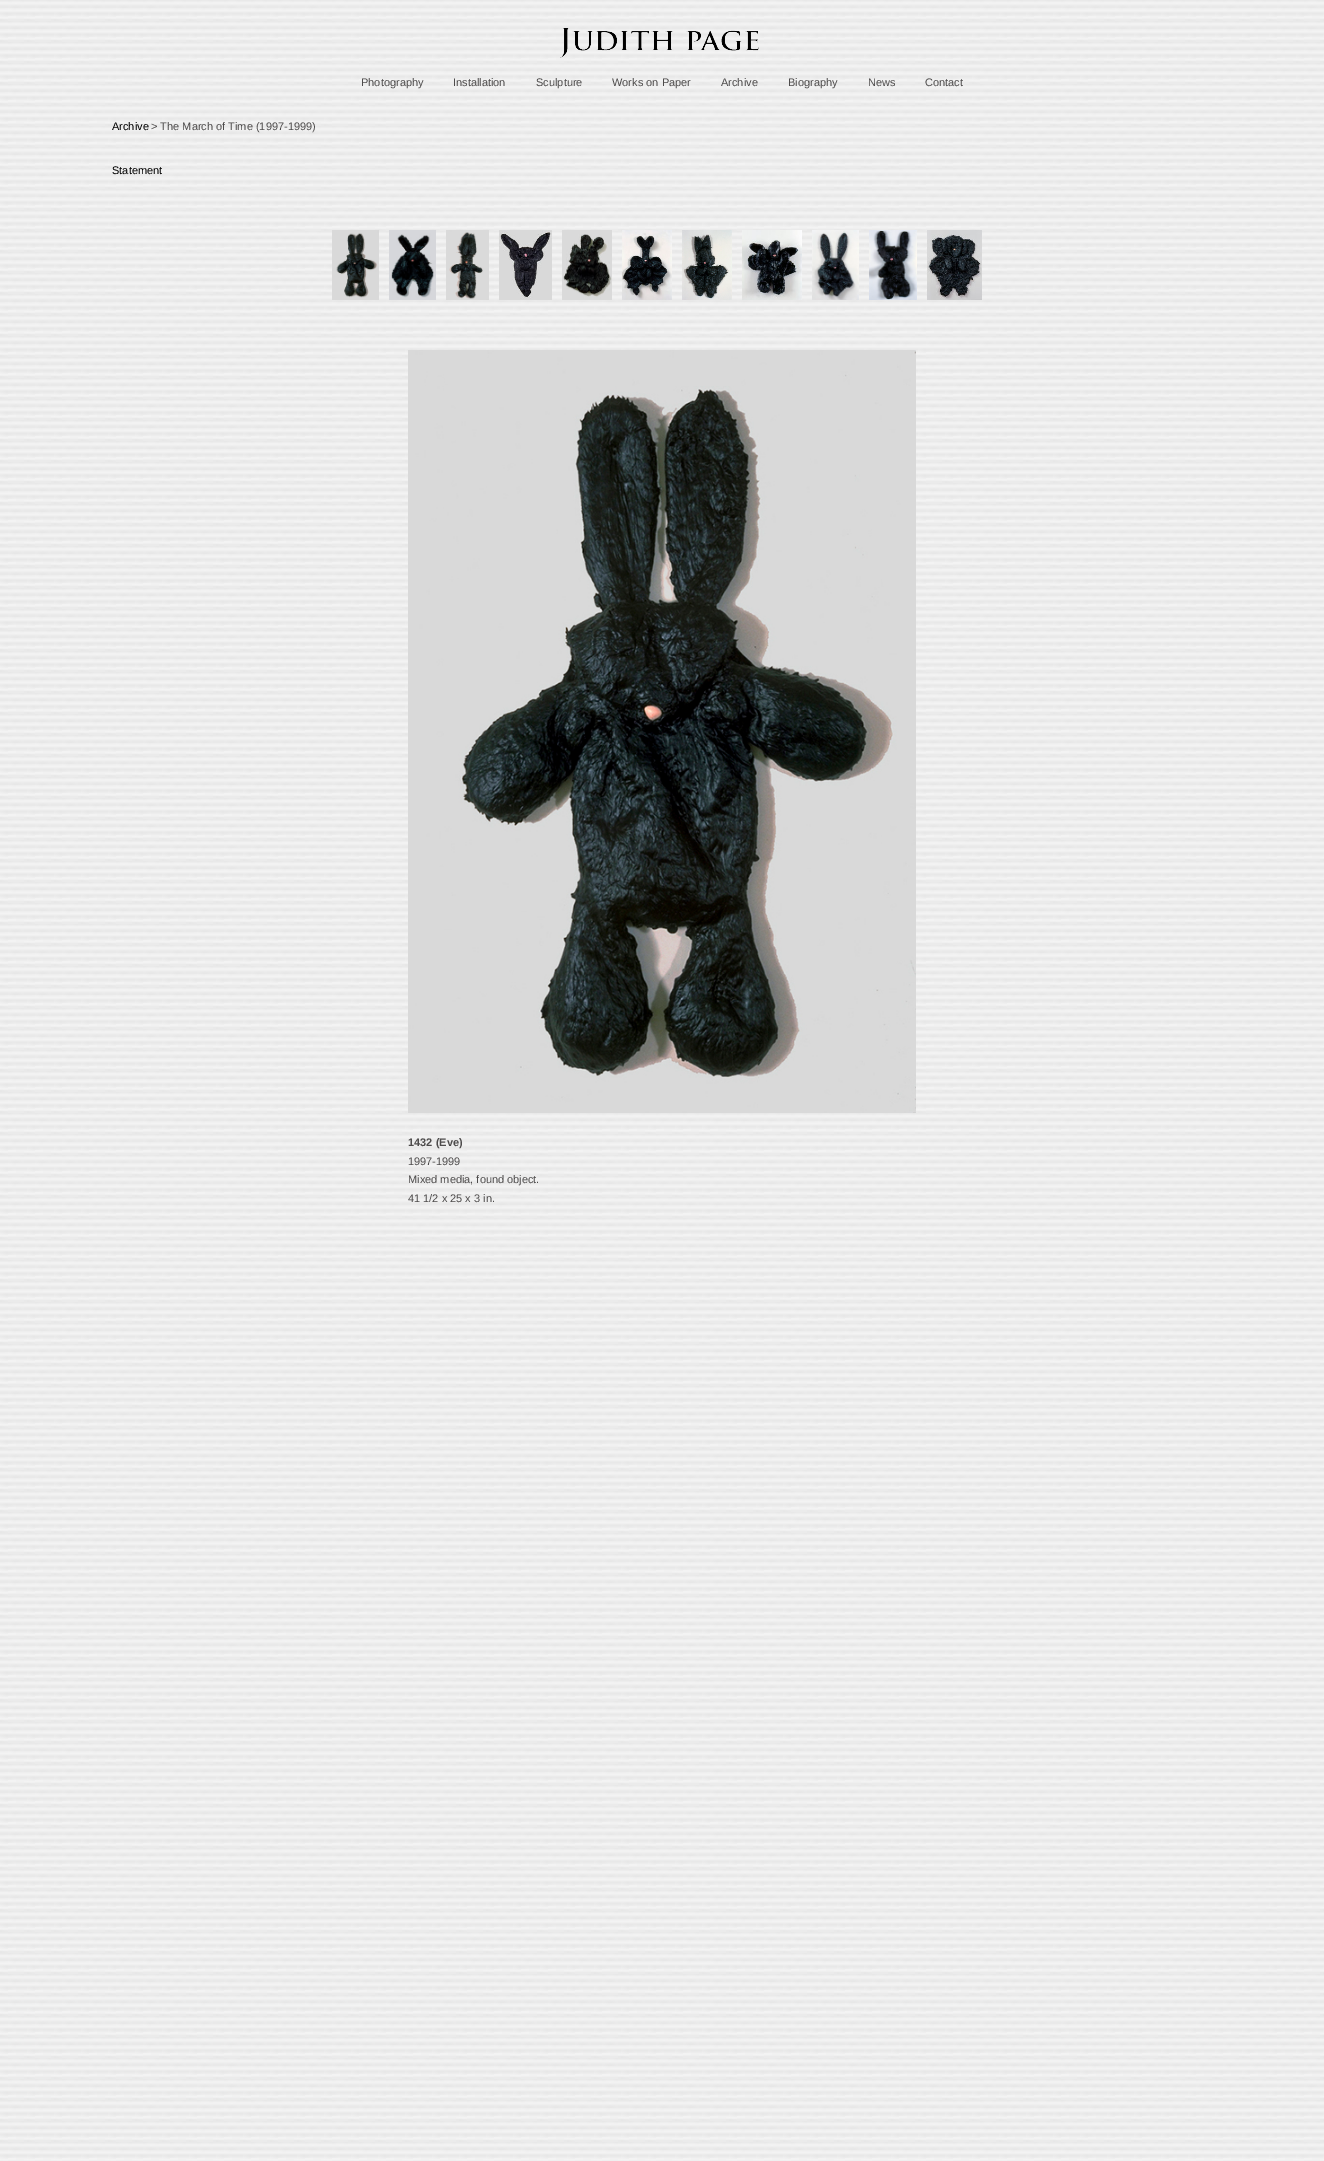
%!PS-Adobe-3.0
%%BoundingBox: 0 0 1324 2161
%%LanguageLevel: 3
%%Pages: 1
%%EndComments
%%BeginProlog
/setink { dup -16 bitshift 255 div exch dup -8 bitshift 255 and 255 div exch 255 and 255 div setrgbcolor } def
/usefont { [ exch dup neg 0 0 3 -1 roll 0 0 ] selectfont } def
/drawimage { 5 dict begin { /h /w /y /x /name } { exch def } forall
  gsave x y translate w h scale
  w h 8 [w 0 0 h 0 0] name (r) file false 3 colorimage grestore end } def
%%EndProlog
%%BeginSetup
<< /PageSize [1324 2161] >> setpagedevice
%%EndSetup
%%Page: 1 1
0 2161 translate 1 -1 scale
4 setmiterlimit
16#FFFFFF setink
0 0 1324 2161 rectfill
(img1.raw) 0 0 1324 2161 drawimage
(img2.raw) 560 28 199 30 drawimage
/LiberationSans-Regular 11 usefont
16#4D4B4B setink
[
    [(Photography) 361 86]
    [(Installation) 453 86]
    [(Sculpture) 536 86]
    [(Works on Paper) 612 86]
    [(Archive) 721 86]
    [(Biography) 788 86]
    [(News) 868 86]
    [(Contact) 925 86]
] { aload pop moveto show } forall
16#000000 setink
112 130 moveto (Archive) show
16#4D4B4B setink
151 130 moveto (> The March of Time \(1997-1999\)) show
16#000000 setink
112 174 moveto (Statement) show
(img3.raw) 332 230 47 70 drawimage
(img4.raw) 389 230 47 70 drawimage
(img5.raw) 446 230 43 70 drawimage
(img6.raw) 499 230 53 70 drawimage
(img7.raw) 562 230 50 70 drawimage
(img8.raw) 622 230 50 70 drawimage
(img9.raw) 682 230 50 70 drawimage
(img10.raw) 742 230 60 70 drawimage
(img11.raw) 812 230 47 70 drawimage
(img12.raw) 869 230 48 70 drawimage
(img13.raw) 927 230 55 70 drawimage
(img14.raw) 408 350 508 763 drawimage
/LiberationSans-Bold 11 usefont
16#4D4B4B setink
408 1146 moveto (1432 \(Eve\)) show
/LiberationSans-Regular 11 usefont
[
    [(1997-1999) 408 1165]
    [(Mixed media, found object.) 408 1183]
    [(41 1/2 x 25 x 3 in.) 408 1202]
] { aload pop moveto show } forall
showpage
%%EOF
